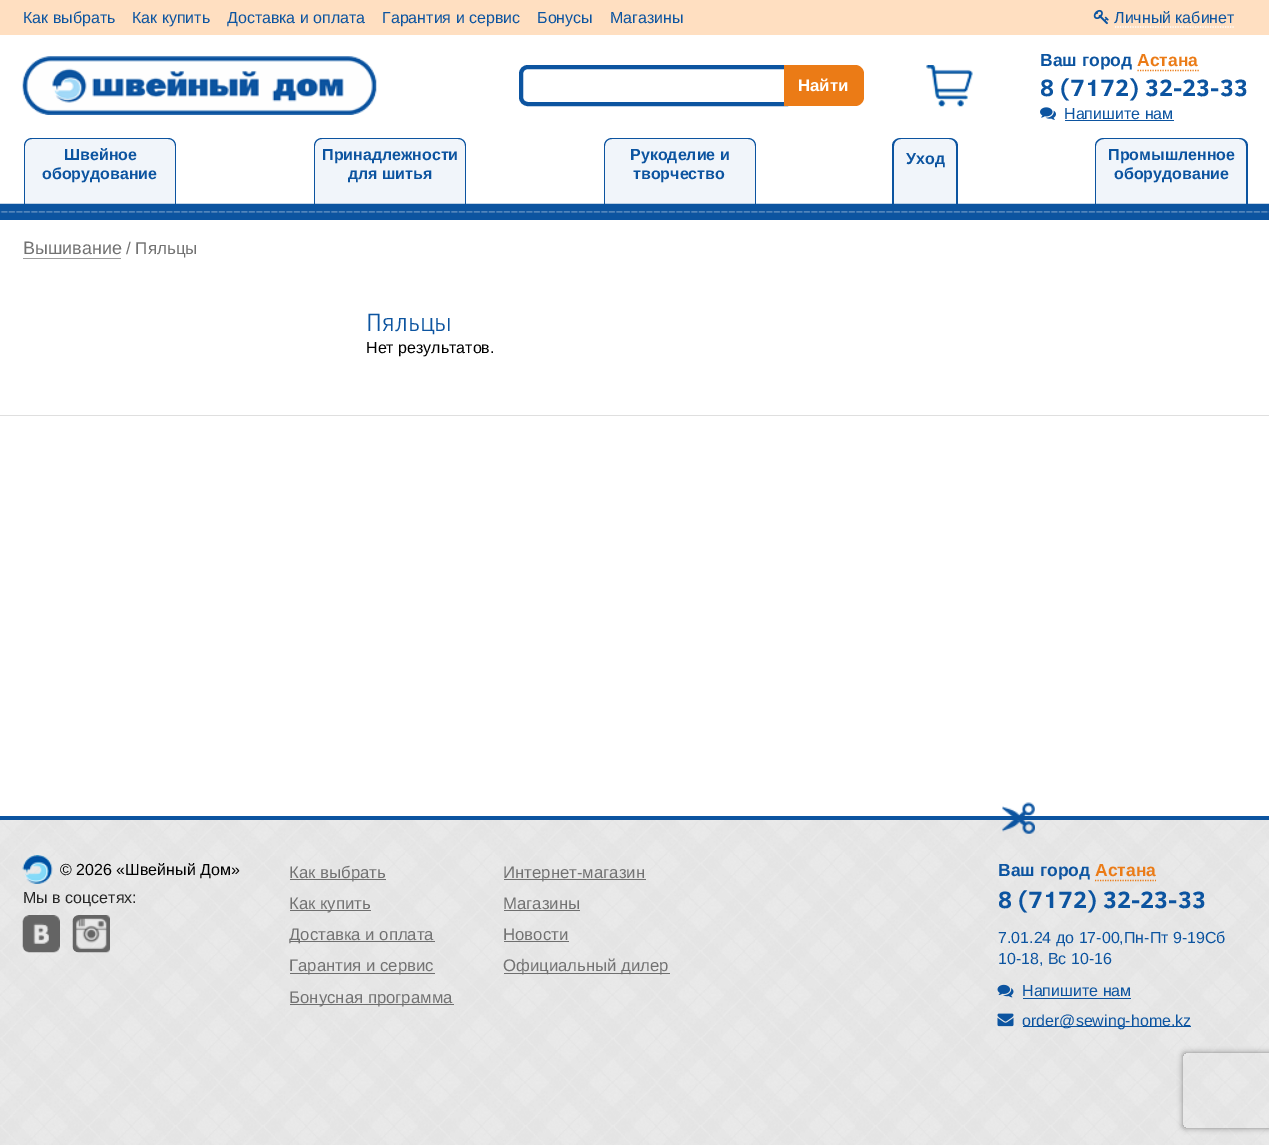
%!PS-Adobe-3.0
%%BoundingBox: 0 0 1269 1145
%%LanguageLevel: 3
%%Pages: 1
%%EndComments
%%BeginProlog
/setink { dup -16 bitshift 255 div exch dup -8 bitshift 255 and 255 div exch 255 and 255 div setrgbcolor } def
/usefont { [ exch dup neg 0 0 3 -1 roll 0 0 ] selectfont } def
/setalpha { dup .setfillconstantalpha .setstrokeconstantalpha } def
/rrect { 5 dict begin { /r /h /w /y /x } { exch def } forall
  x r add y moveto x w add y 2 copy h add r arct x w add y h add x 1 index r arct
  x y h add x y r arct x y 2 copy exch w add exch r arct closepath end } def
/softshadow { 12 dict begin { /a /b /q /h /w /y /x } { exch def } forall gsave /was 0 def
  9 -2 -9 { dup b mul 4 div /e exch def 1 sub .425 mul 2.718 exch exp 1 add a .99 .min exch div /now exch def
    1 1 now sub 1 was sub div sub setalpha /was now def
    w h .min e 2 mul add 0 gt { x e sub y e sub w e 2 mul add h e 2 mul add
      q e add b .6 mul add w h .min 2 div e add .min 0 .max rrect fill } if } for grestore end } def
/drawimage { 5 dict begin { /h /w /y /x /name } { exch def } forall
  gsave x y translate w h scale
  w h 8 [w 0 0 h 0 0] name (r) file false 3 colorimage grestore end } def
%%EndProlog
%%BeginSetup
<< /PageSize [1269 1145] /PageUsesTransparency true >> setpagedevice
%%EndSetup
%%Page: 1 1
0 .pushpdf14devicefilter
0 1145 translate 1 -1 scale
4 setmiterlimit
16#FFFFFF setink
0 0 1269 1145 rectfill
16#FFDFC1 setink
0 0 1269 35 rectfill
/LiberationSans-Regular 16 usefont
16#0C54A0 setink
[
    [(Как выбрать) 23 23]
    [(Как купить) 132 23]
    [(Доставка и оплата) 227 23]
    [(Гарантия и сервис) 382 23]
    [(Бонусы) 537 23]
    [(Магазины) 610 23]
] { aload pop moveto show } forall
(img1.raw) 1093 9 16 16 drawimage
1114 23 moveto (Личный кабинет) show
16#FFFFFF setink
1.2 setlinewidth
[1.25 1.25] 0 setdash
1115 27 moveto 1235 27 lineto stroke
(img2.raw) 22 56 355 59 drawimage
16#0C54A0 setink
4 setlinewidth
[] 0 setdash
528 67 moveto 786 67 lineto 786 104 lineto 528 104 lineto 524 104 521 101 521 97 curveto 521 74 lineto 521 70 524 67 528 67 curveto closepath stroke
16#EB7B16 setink
784 65 moveto 855 65 lineto 860 65 864 69 864 74 curveto 864 97 lineto 864 102 860 106 855 106 curveto 784 106 lineto closepath fill
/LiberationSans-Bold 16.75 usefont
16#FFFFFF setink
798 91 moveto (Найти) show
(img3.raw) 926 65 47 42 drawimage
/LiberationSans-Bold 17.5 usefont
16#0C54A0 setink
1040 66 moveto (Ваш город) show
16#EB7B16 setink
1137 66 moveto (Астана) show
1.2 setlinewidth
[1.25 1.25] 0 setdash
1137.5 70.5 moveto 1199 70.5 lineto stroke
/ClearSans-Bold 24 usefont
16#0C54A0 setink
1040 96 moveto (8 \(7172\) 32-23-33) show
(img4.raw) 1040 107 16 13 drawimage
/LiberationSans-Regular 16 usefont
1064 119 moveto (Напишите нам) show
1065 120 109 1 rectfill
16#F1F5FA setink
33 138 moveto 167 138 lineto 172 138 176 142 176 147 curveto 176 204 lineto 24 204 lineto 24 147 lineto 24 142 28 138 33 138 curveto closepath fill
16#0C54A0 setink
32 138 moveto 168 138 lineto 172 138 176 141 176 146 curveto 176 204 lineto 24 204 lineto 24 146 lineto 24 141 28 138 32 138 curveto closepath 32 139 moveto 168 139 lineto 172 139 175 142 175 146 curveto 175 204 lineto 25 204 lineto 25 146 lineto 25 142 28 139 32 139 curveto closepath eofill
/LiberationSans-Bold 16 usefont
64 160 moveto (Швейное) show
42 179 moveto (оборудование) show
16#F1F5FA setink
323 138 moveto 457 138 lineto 462 138 466 142 466 147 curveto 466 204 lineto 314 204 lineto 314 147 lineto 314 142 318 138 323 138 curveto closepath fill
16#0C54A0 setink
322 138 moveto 458 138 lineto 462 138 466 141 466 146 curveto 466 204 lineto 314 204 lineto 314 146 lineto 314 141 318 138 322 138 curveto closepath 322 139 moveto 458 139 lineto 462 139 465 142 465 146 curveto 465 204 lineto 315 204 lineto 315 146 lineto 315 142 318 139 322 139 curveto closepath eofill
322 160 moveto (Принадлежности) show
348 179 moveto (для шитья) show
16#F1F5FA setink
613 138 moveto 747 138 lineto 752 138 756 142 756 147 curveto 756 204 lineto 604 204 lineto 604 147 lineto 604 142 608 138 613 138 curveto closepath fill
16#0C54A0 setink
612 138 moveto 748 138 lineto 752 138 756 141 756 146 curveto 756 204 lineto 604 204 lineto 604 146 lineto 604 141 608 138 612 138 curveto closepath 612 139 moveto 748 139 lineto 752 139 755 142 755 146 curveto 755 204 lineto 605 204 lineto 605 146 lineto 605 142 608 139 612 139 curveto closepath eofill
630 160 moveto (Рукоделие и) show
633 179 moveto (творчество) show
16#F1F5FA setink
902 138 moveto 949 138 lineto 954 138 958 142 958 147 curveto 958 204 lineto 893 204 lineto 893 147 lineto 893 142 897 138 902 138 curveto closepath fill
16#0C54A0 setink
901 138 moveto 949 138 lineto 954 138 958 141 958 146 curveto 958 204 lineto 892 204 lineto 892 146 lineto 892 141 896 138 901 138 curveto closepath 901 139 moveto 949 139 lineto 953 139 956 142 956 146 curveto 956 204 lineto 894 204 lineto 894 146 lineto 894 142 897 139 901 139 curveto closepath eofill
906 164 moveto (Уход) show
16#F1F5FA setink
1104 138 moveto 1239 138 lineto 1244 138 1248 142 1248 147 curveto 1248 204 lineto 1095 204 lineto 1095 147 lineto 1095 142 1099 138 1104 138 curveto closepath fill
16#0C54A0 setink
1104 138 moveto 1239 138 lineto 1244 138 1248 141 1248 146 curveto 1248 204 lineto 1095 204 lineto 1095 146 lineto 1095 141 1099 138 1104 138 curveto closepath 1104 139 moveto 1239 139 lineto 1243 139 1246 142 1246 146 curveto 1246 204 lineto 1096 204 lineto 1096 146 lineto 1096 142 1100 139 1104 139 curveto closepath eofill
1108 160 moveto (Промышленное) show
1114 179 moveto (оборудование) show
(img5.raw) 0 203 1269 17 drawimage
/LiberationSans-Regular 18 usefont
16#727272 setink
23 254 moveto (Вышивание) show
16#9C9C9C setink
23 258 98 1 rectfill
/LiberationSans-Regular 17 usefont
16#727272 setink
126 254 moveto (/ Пяльцы) show
/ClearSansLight-Light 25.5 usefont
16#0C54A0 setink
366 331 moveto (Пяльцы) show
/LiberationSans-Regular 16 usefont
16#000000 setink
366 353 moveto (Нет результатов.) show
16#DFDFDF setink
0 415 1269 1 rectfill
(img6.raw) 0 820 1269 325 drawimage
16#0C54A0 setink
0 816 1269 4 rectfill
(img7.raw) 1002 802 33 32 drawimage
(img8.raw) 22 855 31 29 drawimage
16#000000 setink
60 875 moveto (© 2026 «Швейный Дом») show
16#262626 setink
23 903 moveto (Мы в соцсетях:) show
(img9.raw) 22 915 38 38 drawimage
(img10.raw) 72 915 38 38 drawimage
16#6F6F6F setink
290 879 96 1 rectfill
/LiberationSans-Regular 16.75 usefont
16#727272 setink
289 878 moveto (Как выбрать) show
16#6F6F6F setink
290 910 81 1 rectfill
16#727272 setink
289 909 moveto (Как купить) show
16#6F6F6F setink
290 941 145 1 rectfill
16#727272 setink
289 940 moveto (Доставка и оплата) show
16#6F6F6F setink
290 973 145 1 rectfill
16#727272 setink
289 971 moveto (Гарантия и сервис) show
16#6F6F6F setink
290 1004 164 1 rectfill
16#727272 setink
289 1003 moveto (Бонусная программа) show
16#6F6F6F setink
504 879 142 1 rectfill
16#727272 setink
503 878 moveto (Интернет-магазин) show
503 909 moveto (Магазины) show
16#6F6F6F setink
504 910 76 1 rectfill
16#727272 setink
503 940 moveto (Новости) show
16#6F6F6F setink
504 941 65 1 rectfill
504 973 166 1 rectfill
16#727272 setink
503 971 moveto (Официальный дилер) show
/LiberationSans-Bold 17.5 usefont
16#0C54A0 setink
998 876 moveto (Ваш город) show
16#EB7B16 setink
1095 876 moveto (Астана) show
1095 880.5 moveto 1156 880.5 lineto stroke
/ClearSans-Bold 24 usefont
16#0C54A0 setink
998 908 moveto (8 \(7172\) 32-23-33) show
/LiberationSans-Regular 16 usefont
998 943 moveto (7.01.24 до 17-00,Пн-Пт 9-19Сб) show
998 964 moveto (10-18, Вс 10-16) show
(img11.raw) 997 984 17 14 drawimage
1022 996 moveto (Напишите нам) show
1023 998 108 1 rectfill
(img12.raw) 997 1013 17 14 drawimage
1023 1026 168 1 rectfill
1022 1026 moveto (order@sewing-home.kz) show
gsave
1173 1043 moveto 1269 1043 lineto 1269 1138 lineto 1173 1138 lineto closepath 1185.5 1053 moveto 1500.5 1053 lineto 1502 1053 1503 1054 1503 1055.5 curveto 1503 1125.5 lineto 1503 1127 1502 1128 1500.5 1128 curveto 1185.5 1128 lineto 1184 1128 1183 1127 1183 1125.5 curveto 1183 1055.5 lineto 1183 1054 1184 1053 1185.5 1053 curveto closepath eoclip newpath
16#808080 setink
1183 1053 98 75 2.5 3 1 softshadow
grestore
.poppdf14devicefilter showpage
%%EOF
